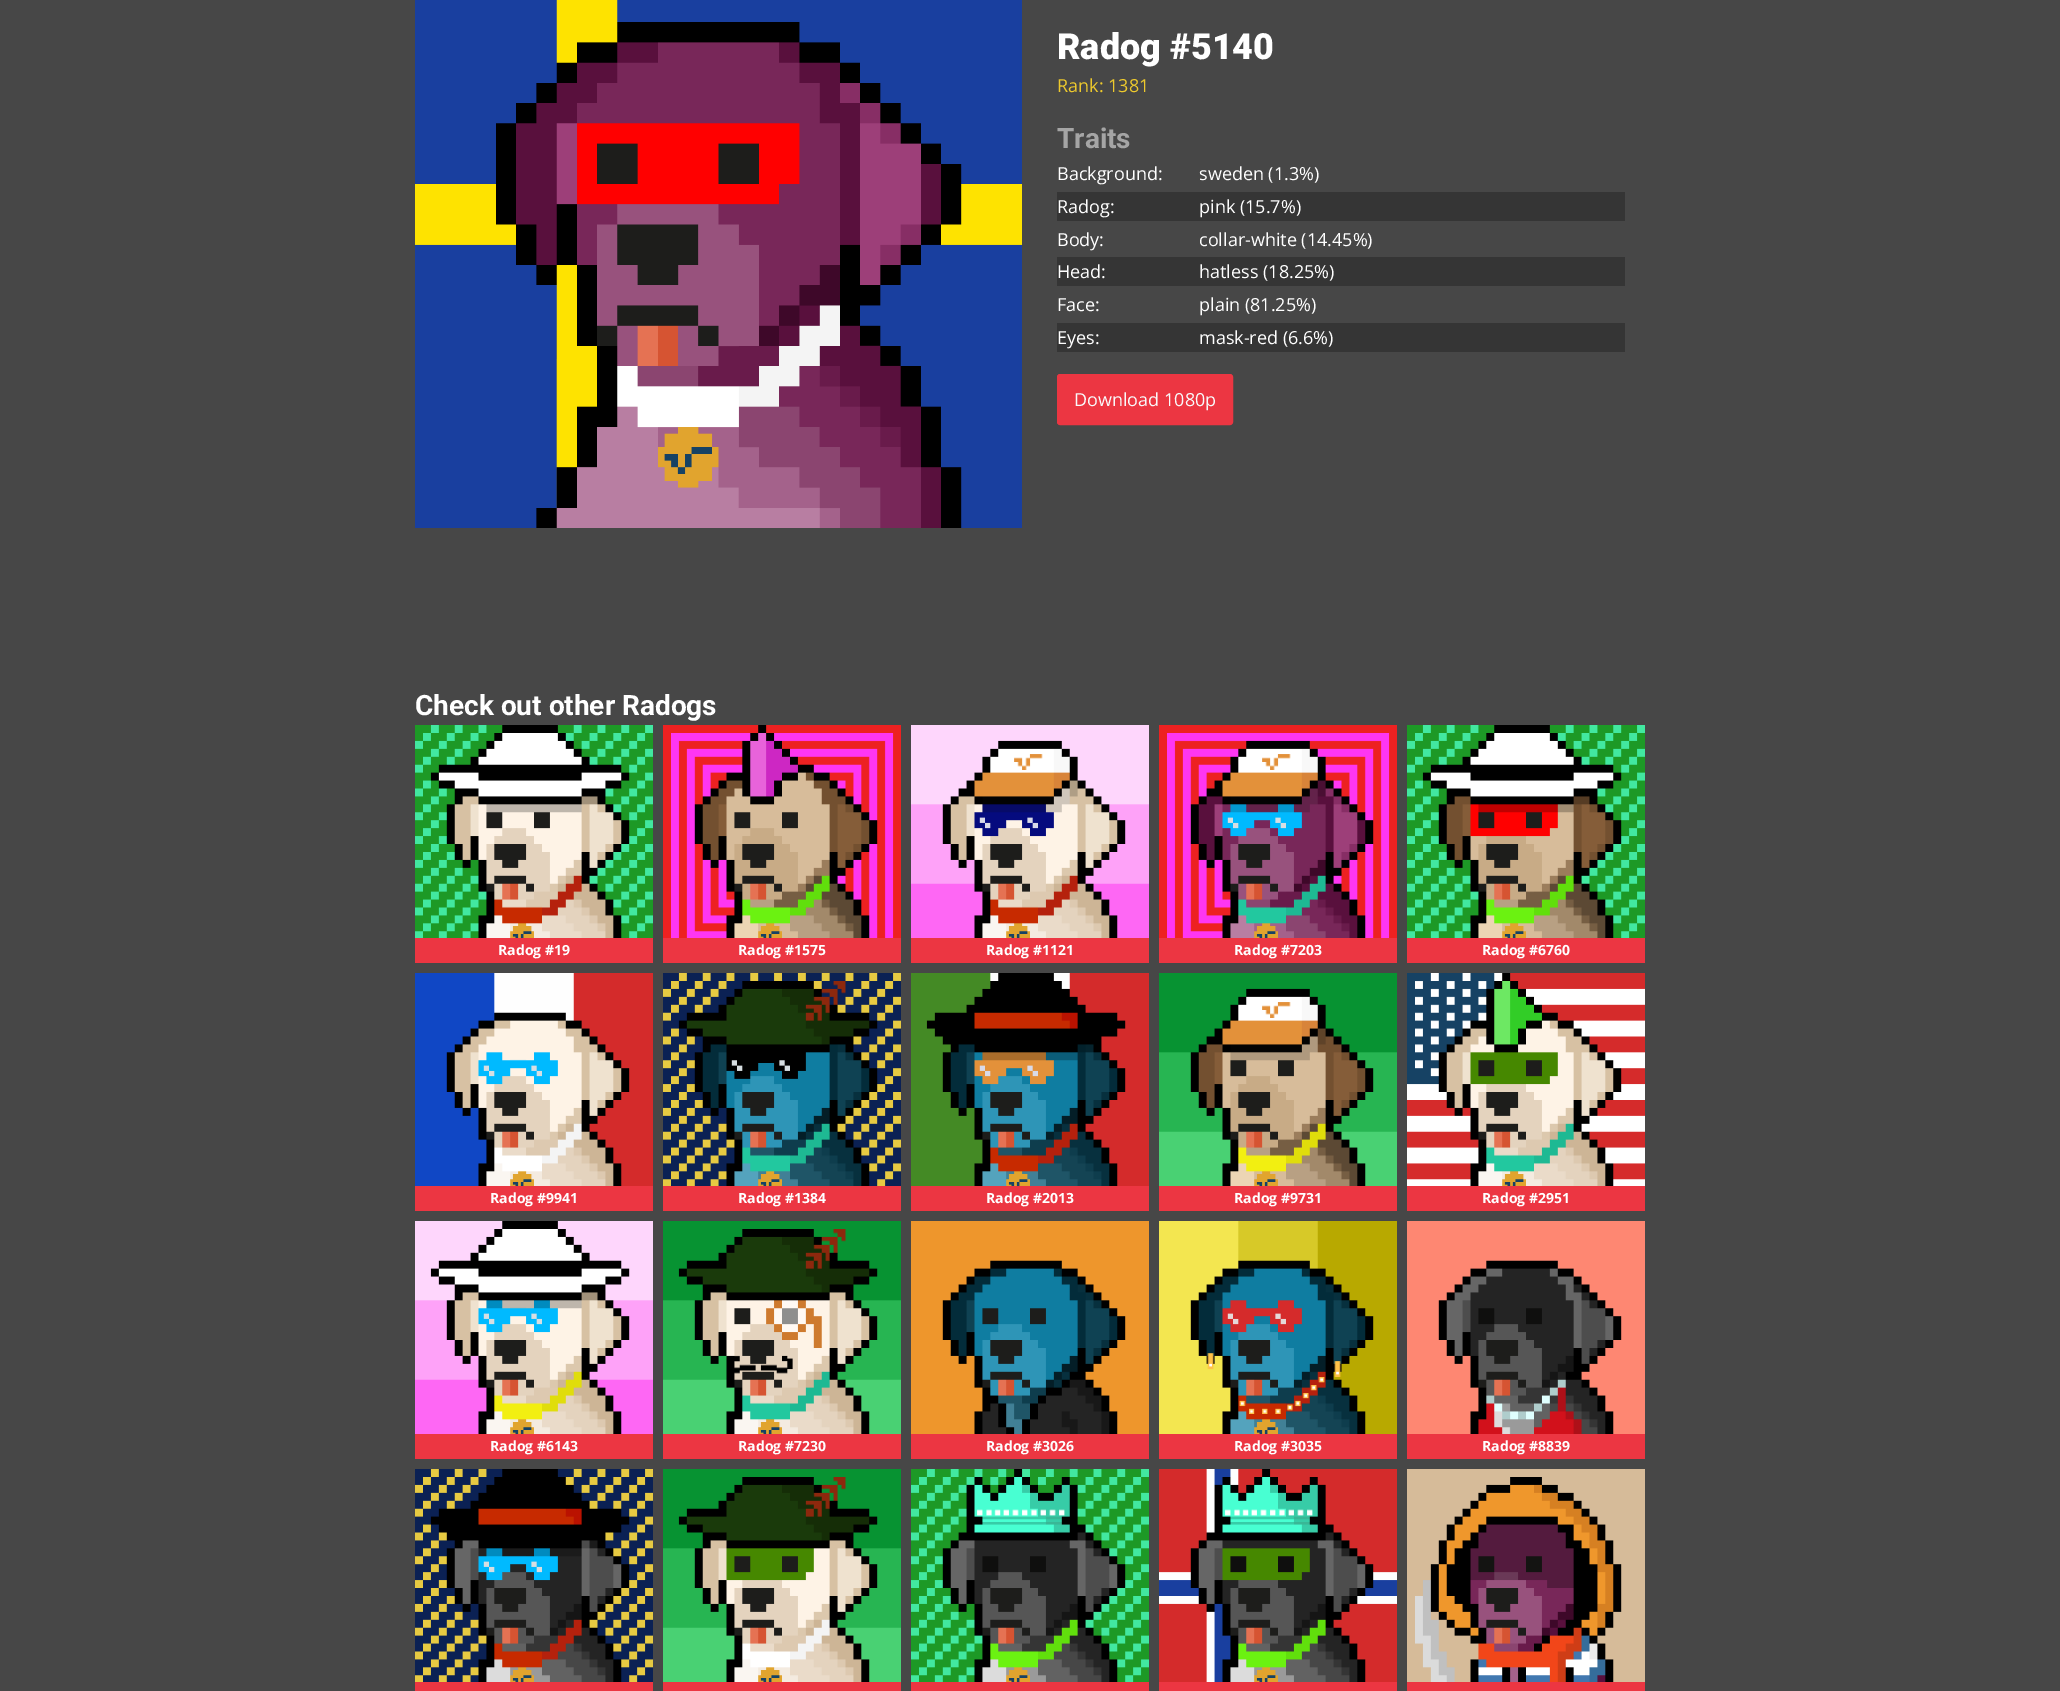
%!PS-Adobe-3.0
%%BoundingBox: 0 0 2060 1691
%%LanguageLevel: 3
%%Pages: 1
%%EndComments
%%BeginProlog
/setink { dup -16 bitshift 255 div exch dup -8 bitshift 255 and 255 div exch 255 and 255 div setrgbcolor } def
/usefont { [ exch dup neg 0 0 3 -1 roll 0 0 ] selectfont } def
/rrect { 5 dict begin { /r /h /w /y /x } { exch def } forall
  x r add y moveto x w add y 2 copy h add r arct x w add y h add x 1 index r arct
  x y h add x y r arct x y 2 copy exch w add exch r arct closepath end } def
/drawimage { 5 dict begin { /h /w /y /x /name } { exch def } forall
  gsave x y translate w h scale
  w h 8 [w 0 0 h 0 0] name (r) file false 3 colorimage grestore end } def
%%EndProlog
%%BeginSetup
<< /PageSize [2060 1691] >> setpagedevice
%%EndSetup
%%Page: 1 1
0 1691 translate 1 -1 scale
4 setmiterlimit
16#474747 setink
0 0 2060 1691 rectfill
(img1.raw) 415 0 607 528 drawimage
/Roboto-Black 36 usefont
16#FFFFFF setink
1057 59 moveto (Radog #5140) show
/OpenSans-Regular 18 usefont
16#EDC92D setink
1057 92 moveto (Rank: 1381) show
/Roboto-Bold 28 usefont
16#A5A5A5 setink
1057 148 moveto (Traits) show
/OpenSans-Regular 18 usefont
16#FFFFFF setink
1057 180 moveto (Background:) show
1199 180 moveto (sweden \(1.3%\)) show
16#353535 setink
1057 192 568 29 rectfill
16#FFFFFF setink
[
    [(Radog:) 1057 213]
    [(pink \(15.7%\)) 1199 213]
    [(Body:) 1057 246]
    [(collar-white \(14.45%\)) 1199 246]
] { aload pop moveto show } forall
16#353535 setink
1057 257 568 29 rectfill
16#FFFFFF setink
[
    [(Head:) 1057 278]
    [(hatless \(18.25%\)) 1199 278]
    [(Face:) 1057 311]
    [(plain \(81.25%\)) 1199 311]
] { aload pop moveto show } forall
16#353535 setink
1057 323 568 29 rectfill
16#FFFFFF setink
1057 344 moveto (Eyes:) show
1199 344 moveto (mask-red \(6.6%\)) show
16#EC3642 setink
1057.5 374.5 175 50 2.5 rrect gsave fill grestore
stroke
16#F9F9FA setink
1074 406 moveto (Download 1080p) show
/Roboto-Bold 28 usefont
16#FFFFFF setink
415 715 moveto (Check out other Radogs) show
(img2.raw) 415 725 238 213 drawimage
16#EC3642 setink
415 938 238 25 rectfill
/OpenSans-Bold 14 usefont
16#FFFFFF setink
498 955 moveto (Radog #19) show
(img3.raw) 663 725 238 213 drawimage
16#EC3642 setink
663 938 238 25 rectfill
16#FFFFFF setink
738 955 moveto (Radog #1575) show
(img4.raw) 911 725 238 213 drawimage
16#EC3642 setink
911 938 238 25 rectfill
16#FFFFFF setink
986 955 moveto (Radog #1121) show
(img5.raw) 1159 725 238 213 drawimage
16#EC3642 setink
1159 938 238 25 rectfill
16#FFFFFF setink
1234 955 moveto (Radog #7203) show
(img6.raw) 1407 725 238 213 drawimage
16#EC3642 setink
1407 938 238 25 rectfill
16#FFFFFF setink
1482 955 moveto (Radog #6760) show
(img7.raw) 415 973 238 213 drawimage
16#EC3642 setink
415 1186 238 25 rectfill
16#FFFFFF setink
490 1203 moveto (Radog #9941) show
(img8.raw) 663 973 238 213 drawimage
16#EC3642 setink
663 1186 238 25 rectfill
16#FFFFFF setink
738 1203 moveto (Radog #1384) show
(img9.raw) 911 973 238 213 drawimage
16#EC3642 setink
911 1186 238 25 rectfill
16#FFFFFF setink
986 1203 moveto (Radog #2013) show
(img10.raw) 1159 973 238 213 drawimage
16#EC3642 setink
1159 1186 238 25 rectfill
16#FFFFFF setink
1234 1203 moveto (Radog #9731) show
(img11.raw) 1407 973 238 213 drawimage
16#EC3642 setink
1407 1186 238 25 rectfill
16#FFFFFF setink
1482 1203 moveto (Radog #2951) show
(img12.raw) 415 1221 238 213 drawimage
16#EC3642 setink
415 1434 238 25 rectfill
16#FFFFFF setink
490 1451 moveto (Radog #6143) show
(img13.raw) 663 1221 238 213 drawimage
16#EC3642 setink
663 1434 238 25 rectfill
16#FFFFFF setink
738 1451 moveto (Radog #7230) show
(img14.raw) 911 1221 238 213 drawimage
16#EC3642 setink
911 1434 238 25 rectfill
16#FFFFFF setink
986 1451 moveto (Radog #3026) show
(img15.raw) 1159 1221 238 213 drawimage
16#EC3642 setink
1159 1434 238 25 rectfill
16#FFFFFF setink
1234 1451 moveto (Radog #3035) show
(img16.raw) 1407 1221 238 213 drawimage
16#EC3642 setink
1407 1434 238 25 rectfill
16#FFFFFF setink
1482 1451 moveto (Radog #8839) show
(img17.raw) 415 1469 238 213 drawimage
16#EC3642 setink
415 1682 238 9 rectfill
(img18.raw) 663 1469 238 213 drawimage
663 1682 238 9 rectfill
(img19.raw) 911 1469 238 213 drawimage
911 1682 238 9 rectfill
(img20.raw) 1159 1469 238 213 drawimage
1159 1682 238 9 rectfill
(img21.raw) 1407 1469 238 213 drawimage
1407 1682 238 9 rectfill
showpage
%%EOF
